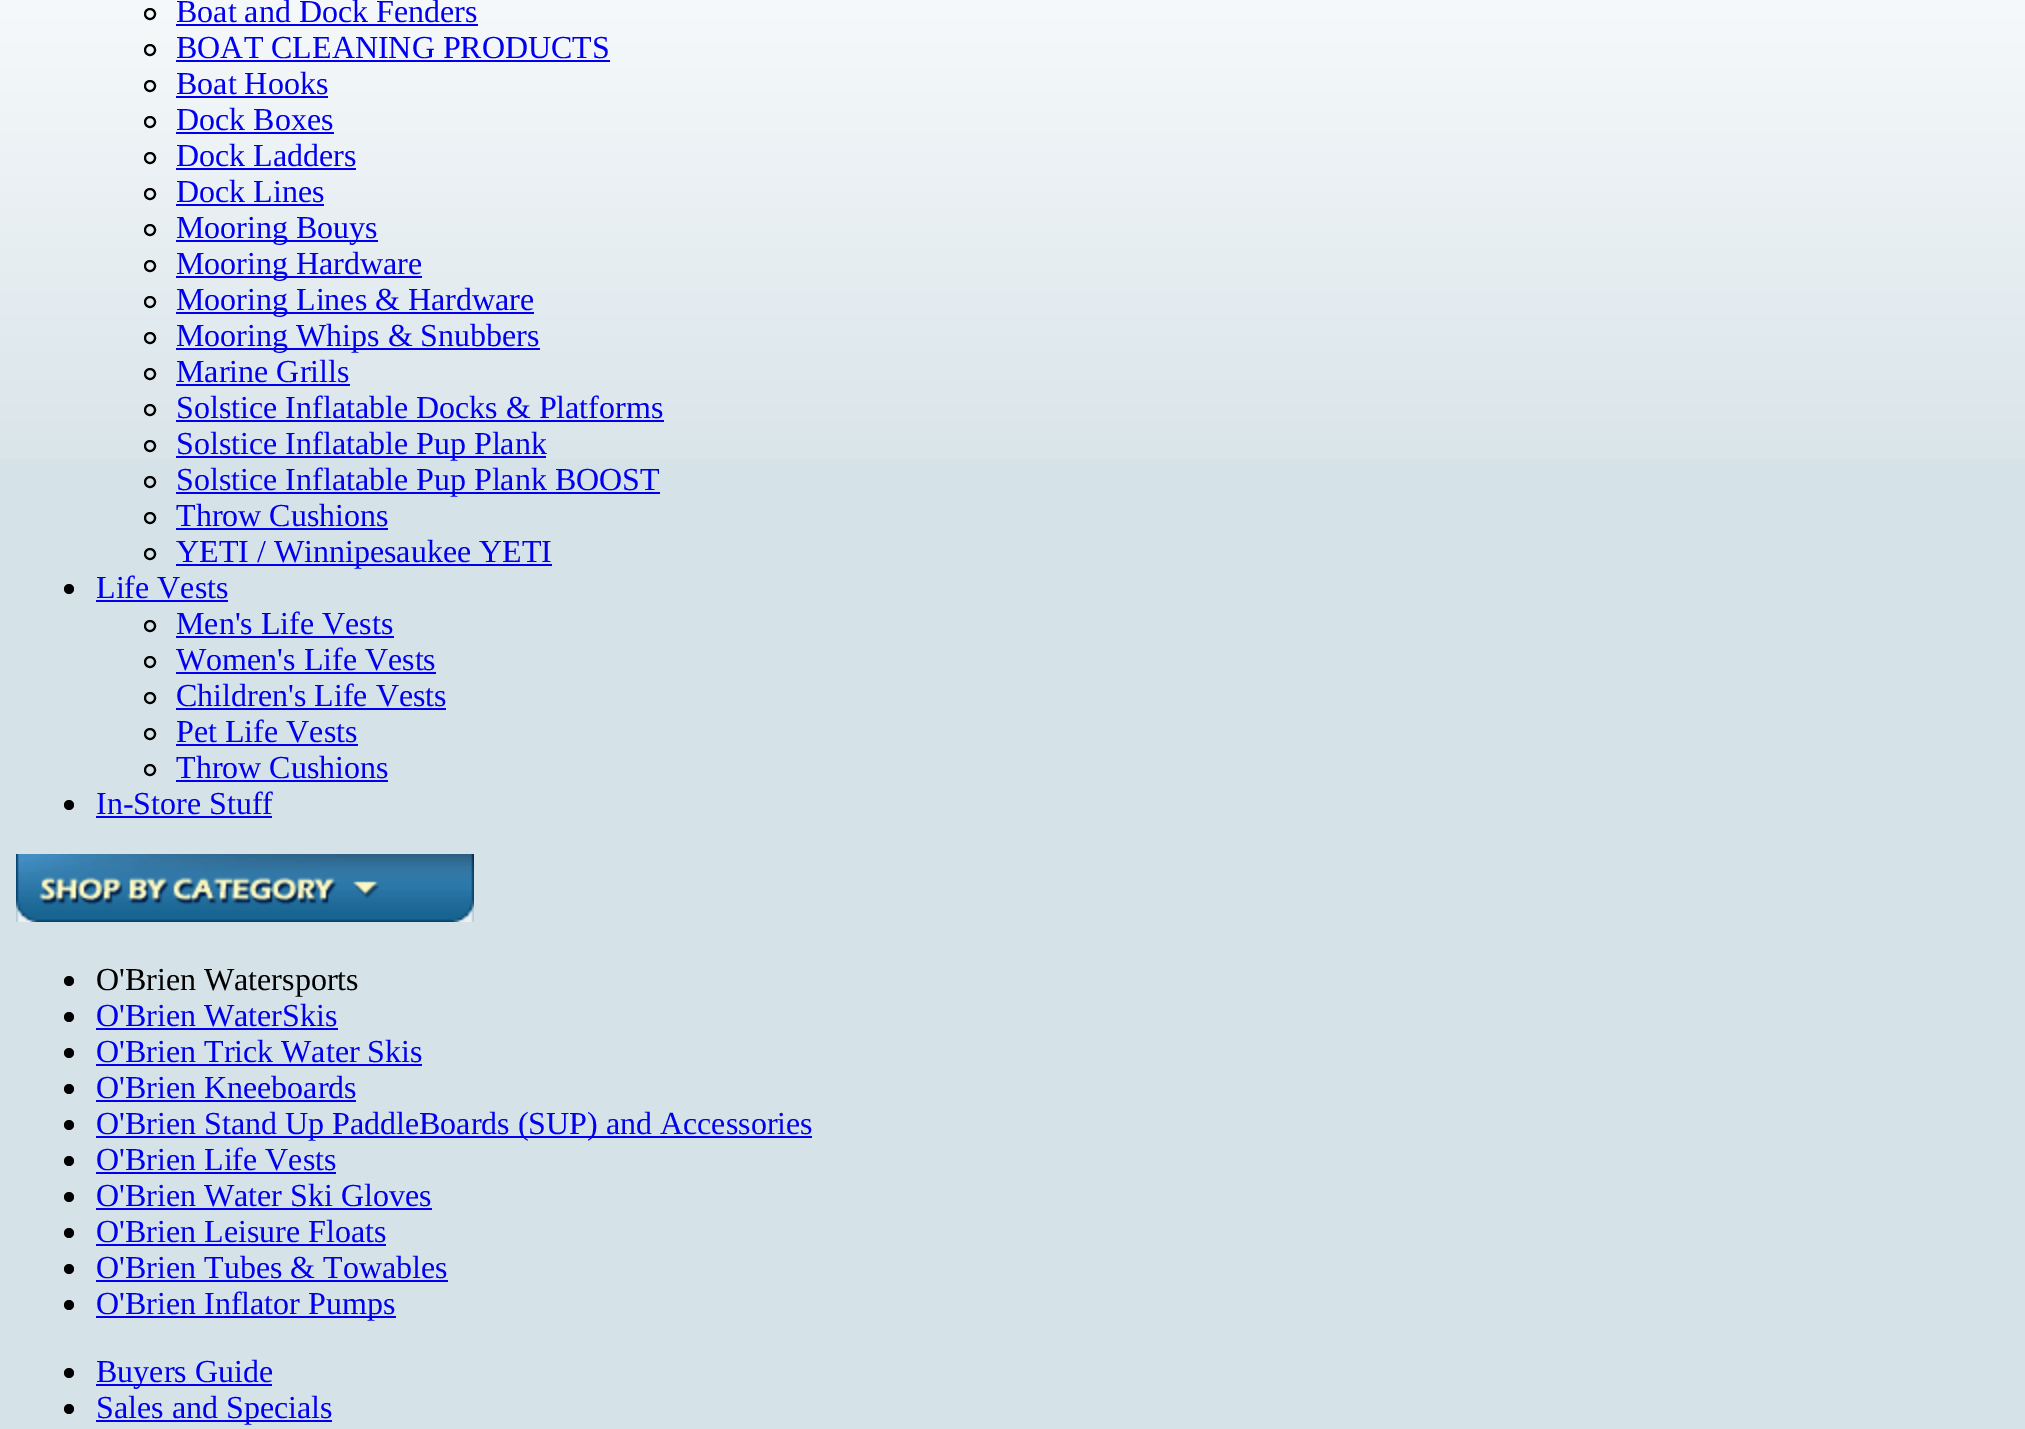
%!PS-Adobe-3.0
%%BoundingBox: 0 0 2025 1429
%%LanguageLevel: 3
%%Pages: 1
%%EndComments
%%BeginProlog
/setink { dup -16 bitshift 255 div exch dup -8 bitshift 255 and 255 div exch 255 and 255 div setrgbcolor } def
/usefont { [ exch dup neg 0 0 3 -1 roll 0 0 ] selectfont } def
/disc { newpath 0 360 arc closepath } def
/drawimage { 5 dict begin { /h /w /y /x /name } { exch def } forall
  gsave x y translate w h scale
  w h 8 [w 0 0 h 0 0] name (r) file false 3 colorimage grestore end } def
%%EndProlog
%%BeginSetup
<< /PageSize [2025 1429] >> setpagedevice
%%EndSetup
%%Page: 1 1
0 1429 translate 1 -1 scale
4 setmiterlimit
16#D5E2E8 setink
0 0 2025 1429 rectfill
(img1.raw) 0 0 2025 459 drawimage
16#000000 setink
2 setlinewidth
150 14 5 disc stroke
/LiberationSerif-Regular 32 usefont
16#0000EE setink
176 22 moveto (Boat and Dock Fenders) show
176 24 302 2 rectfill
16#000000 setink
150 50 5 disc stroke
16#0000EE setink
176 58 moveto (BOAT CLEANING PRODUCTS) show
176 60 434 2 rectfill
16#000000 setink
150 86 5 disc stroke
16#0000EE setink
176 94 moveto (Boat Hooks) show
176 96 152 2 rectfill
16#000000 setink
150 122 5 disc stroke
16#0000EE setink
176 130 moveto (Dock Boxes) show
176 132 158 2 rectfill
16#000000 setink
150 158 5 disc stroke
16#0000EE setink
176 166 moveto (Dock Ladders) show
176 168 180 2 rectfill
16#000000 setink
150 194 5 disc stroke
16#0000EE setink
176 202 moveto (Dock Lines) show
176 204 148 2 rectfill
16#000000 setink
150 230 5 disc stroke
16#0000EE setink
176 240 202 2 rectfill
176 238 moveto (Mooring Bouys) show
16#000000 setink
150 266 5 disc stroke
16#0000EE setink
176 276 246 2 rectfill
176 274 moveto (Mooring Hardware) show
16#000000 setink
150 302 5 disc stroke
16#0000EE setink
176 312 358 2 rectfill
176 310 moveto (Mooring Lines & Hardware) show
16#000000 setink
150 338 5 disc stroke
16#0000EE setink
176 348 364 2 rectfill
176 346 moveto (Mooring Whips & Snubbers) show
16#000000 setink
150 374 5 disc stroke
16#0000EE setink
176 382 moveto (Marine Grills) show
176 384 174 2 rectfill
16#000000 setink
150 410 5 disc stroke
16#0000EE setink
176 418 moveto (Solstice Inflatable Docks & Platforms) show
176 420 488 2 rectfill
16#000000 setink
150 446 5 disc stroke
16#0000EE setink
176 456 370 2 rectfill
176 454 moveto (Solstice Inflatable Pup Plank) show
16#000000 setink
150 482 5 disc stroke
16#0000EE setink
176 492 484 2 rectfill
176 490 moveto (Solstice Inflatable Pup Plank BOOST) show
16#000000 setink
150 518 5 disc stroke
16#0000EE setink
176 526 moveto (Throw Cushions) show
176 528 212 2 rectfill
16#000000 setink
150 554 5 disc stroke
16#0000EE setink
176 564 376 2 rectfill
176 562 moveto (YETI / Winnipesaukee YETI) show
16#000000 setink
69 589 5 disc fill
16#0000EE setink
96 598 moveto (Life Vests) show
96 600 132 2 rectfill
16#000000 setink
150 626 5 disc stroke
16#0000EE setink
176 634 moveto (Men's Life Vests) show
176 636 218 2 rectfill
16#000000 setink
150 662 5 disc stroke
16#0000EE setink
176 670 moveto (Women's Life Vests) show
176 672 260 2 rectfill
16#000000 setink
150 698 5 disc stroke
16#0000EE setink
176 706 moveto (Children's Life Vests) show
176 708 270 2 rectfill
16#000000 setink
150 734 5 disc stroke
16#0000EE setink
176 742 moveto (Pet Life Vests) show
176 744 182 2 rectfill
16#000000 setink
150 770 5 disc stroke
16#0000EE setink
176 778 moveto (Throw Cushions) show
176 780 212 2 rectfill
16#000000 setink
69 805 5 disc fill
16#0000EE setink
96 814 moveto (In-Store Stuff) show
96 816 176 2 rectfill
(img2.raw) 16 854 458 68 drawimage
16#000000 setink
69 981 5 disc fill
96 990 moveto (O'Brien Watersports) show
69 1017 5 disc fill
16#0000EE setink
96 1026 moveto (O'Brien WaterSkis) show
96 1028 242 2 rectfill
16#000000 setink
69 1053 5 disc fill
16#0000EE setink
96 1062 moveto (O'Brien Trick Water Skis) show
96 1064 326 2 rectfill
16#000000 setink
69 1089 5 disc fill
16#0000EE setink
96 1098 moveto (O'Brien Kneeboards) show
96 1100 260 2 rectfill
16#000000 setink
69 1125 5 disc fill
16#0000EE setink
96 1136 716 2 rectfill
96 1134 moveto (O'Brien Stand Up PaddleBoards \(SUP\) and Accessories) show
16#000000 setink
69 1161 5 disc fill
16#0000EE setink
96 1170 moveto (O'Brien Life Vests) show
96 1172 240 2 rectfill
16#000000 setink
69 1197 5 disc fill
16#0000EE setink
96 1206 moveto (O'Brien Water Ski Gloves) show
96 1208 336 2 rectfill
16#000000 setink
69 1233 5 disc fill
16#0000EE setink
96 1242 moveto (O'Brien Leisure Floats) show
96 1244 290 2 rectfill
16#000000 setink
69 1269 5 disc fill
16#0000EE setink
96 1278 moveto (O'Brien Tubes & Towables) show
96 1280 352 2 rectfill
16#000000 setink
69 1305 5 disc fill
16#0000EE setink
96 1316 300 2 rectfill
96 1314 moveto (O'Brien Inflator Pumps) show
16#000000 setink
69 1373 5 disc fill
16#0000EE setink
96 1384 176 2 rectfill
96 1382 moveto (Buyers Guide) show
16#000000 setink
69 1409 5 disc fill
16#0000EE setink
96 1420 236 2 rectfill
96 1418 moveto (Sales and Specials) show
showpage
%%EOF
